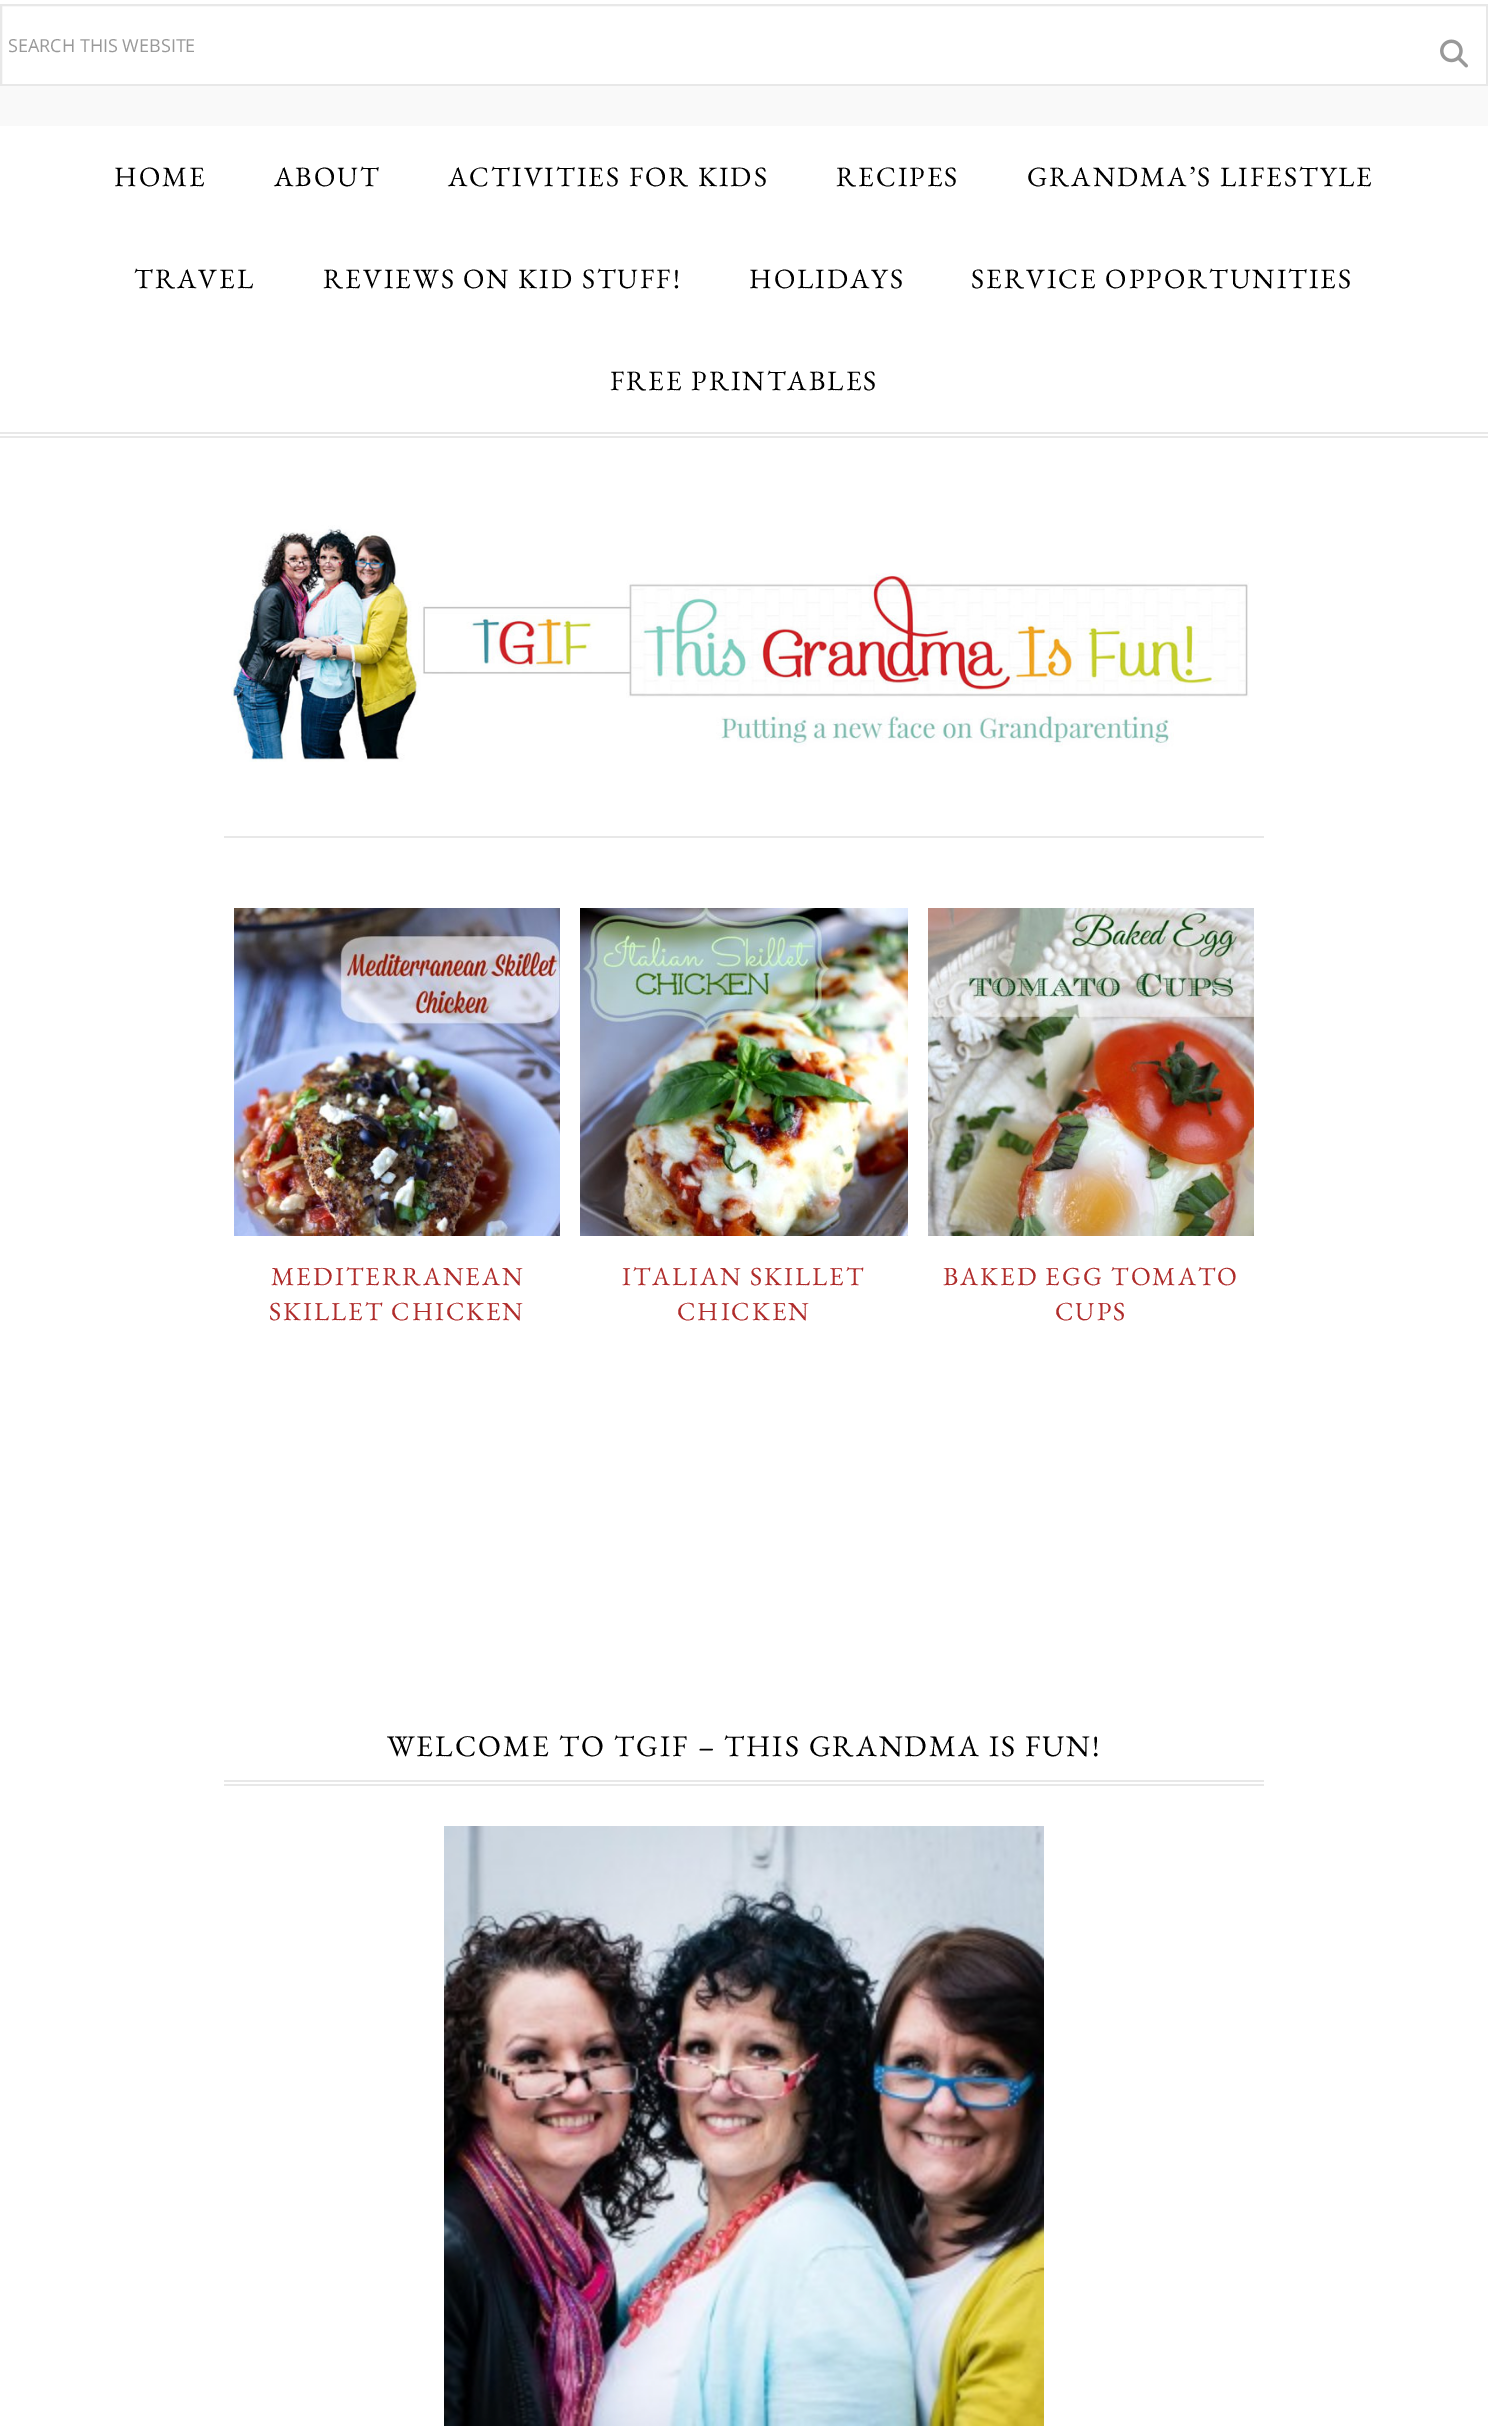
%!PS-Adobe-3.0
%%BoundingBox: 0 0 1488 2428
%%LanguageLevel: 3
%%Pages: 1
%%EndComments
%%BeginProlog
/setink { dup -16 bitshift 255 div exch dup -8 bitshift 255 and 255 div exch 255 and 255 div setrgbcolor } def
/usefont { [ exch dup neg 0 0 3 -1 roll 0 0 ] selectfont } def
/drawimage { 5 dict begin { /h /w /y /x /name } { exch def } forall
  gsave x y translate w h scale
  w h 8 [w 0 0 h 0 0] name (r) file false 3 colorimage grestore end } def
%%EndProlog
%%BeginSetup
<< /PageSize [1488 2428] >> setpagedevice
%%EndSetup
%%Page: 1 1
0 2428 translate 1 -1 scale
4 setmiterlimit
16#FFFFFF setink
0 0 1488 2428 rectfill
16#E8E8E8 setink
2 setlinewidth
1 5 1486 80 rectstroke
/OpenSans-Regular 18 usefont
16#999999 setink
8 52 moveto (SEARCH THIS WEBSITE) show
(img1.raw) 1440 39 28 29 drawimage
[
    [0 86 1488 40 16#F9F9F9]
    [0 432 1488 2 16#E8E8E8]
    [0 436 1488 2 16#E8E8E8]
] { aload pop setink rectfill } forall
/EBGaramond-Regular 28 usefont
16#000000 setink
114 186 moveto 2 0 (HOME) ashow
274 186 moveto 2 0 (ABOUT) ashow
448 186 moveto 2 0 (ACTIVITIES FOR KIDS) ashow
836 186 moveto 2 0 (RECIPES) ashow
1027 186 moveto 2 0 (GRANDMA’S LIFESTYLE) ashow
134 288 moveto 2 0 (TRAVEL) ashow
323 288 moveto 2 0 (REVIEWS ON KID STUFF!) ashow
749 288 moveto 2 0 (HOLIDAYS) ashow
971 288 moveto 2 0 (SERVICE OPPORTUNITIES) ashow
610 390 moveto 2 0 (FREE PRINTABLES) ashow
16#E8E8E8 setink
224 836 1040 2 rectfill
(img2.raw) 231 525 1018 237 drawimage
(img3.raw) 234 908 326 328 drawimage
/EBGaramond-Regular 26 usefont
16#B02C2B setink
271 1285 moveto 2 0 (MEDITERRANEAN) ashow
269 1320 moveto 2 0 (SKILLET CHICKEN) ashow
(img4.raw) 580 908 328 328 drawimage
622 1285 moveto 2 0 (ITALIAN SKILLET) ashow
677 1320 moveto 2 0 (CHICKEN) ashow
(img5.raw) 928 908 326 328 drawimage
943 1285 moveto 2 0 (BAKED EGG TOMATO) ashow
1055 1320 moveto 2 0 (CUPS) ashow
16#E8E8E8 setink
224 1780 1040 2 rectfill
224 1784 1040 2 rectfill
/EBGaramond-Regular 30 usefont
16#000000 setink
387 1756 moveto 2 0 (WELCOME TO TGIF – THIS GRANDMA IS FUN!) ashow
(img6.raw) 444 1826 600 600 drawimage
showpage
%%EOF
